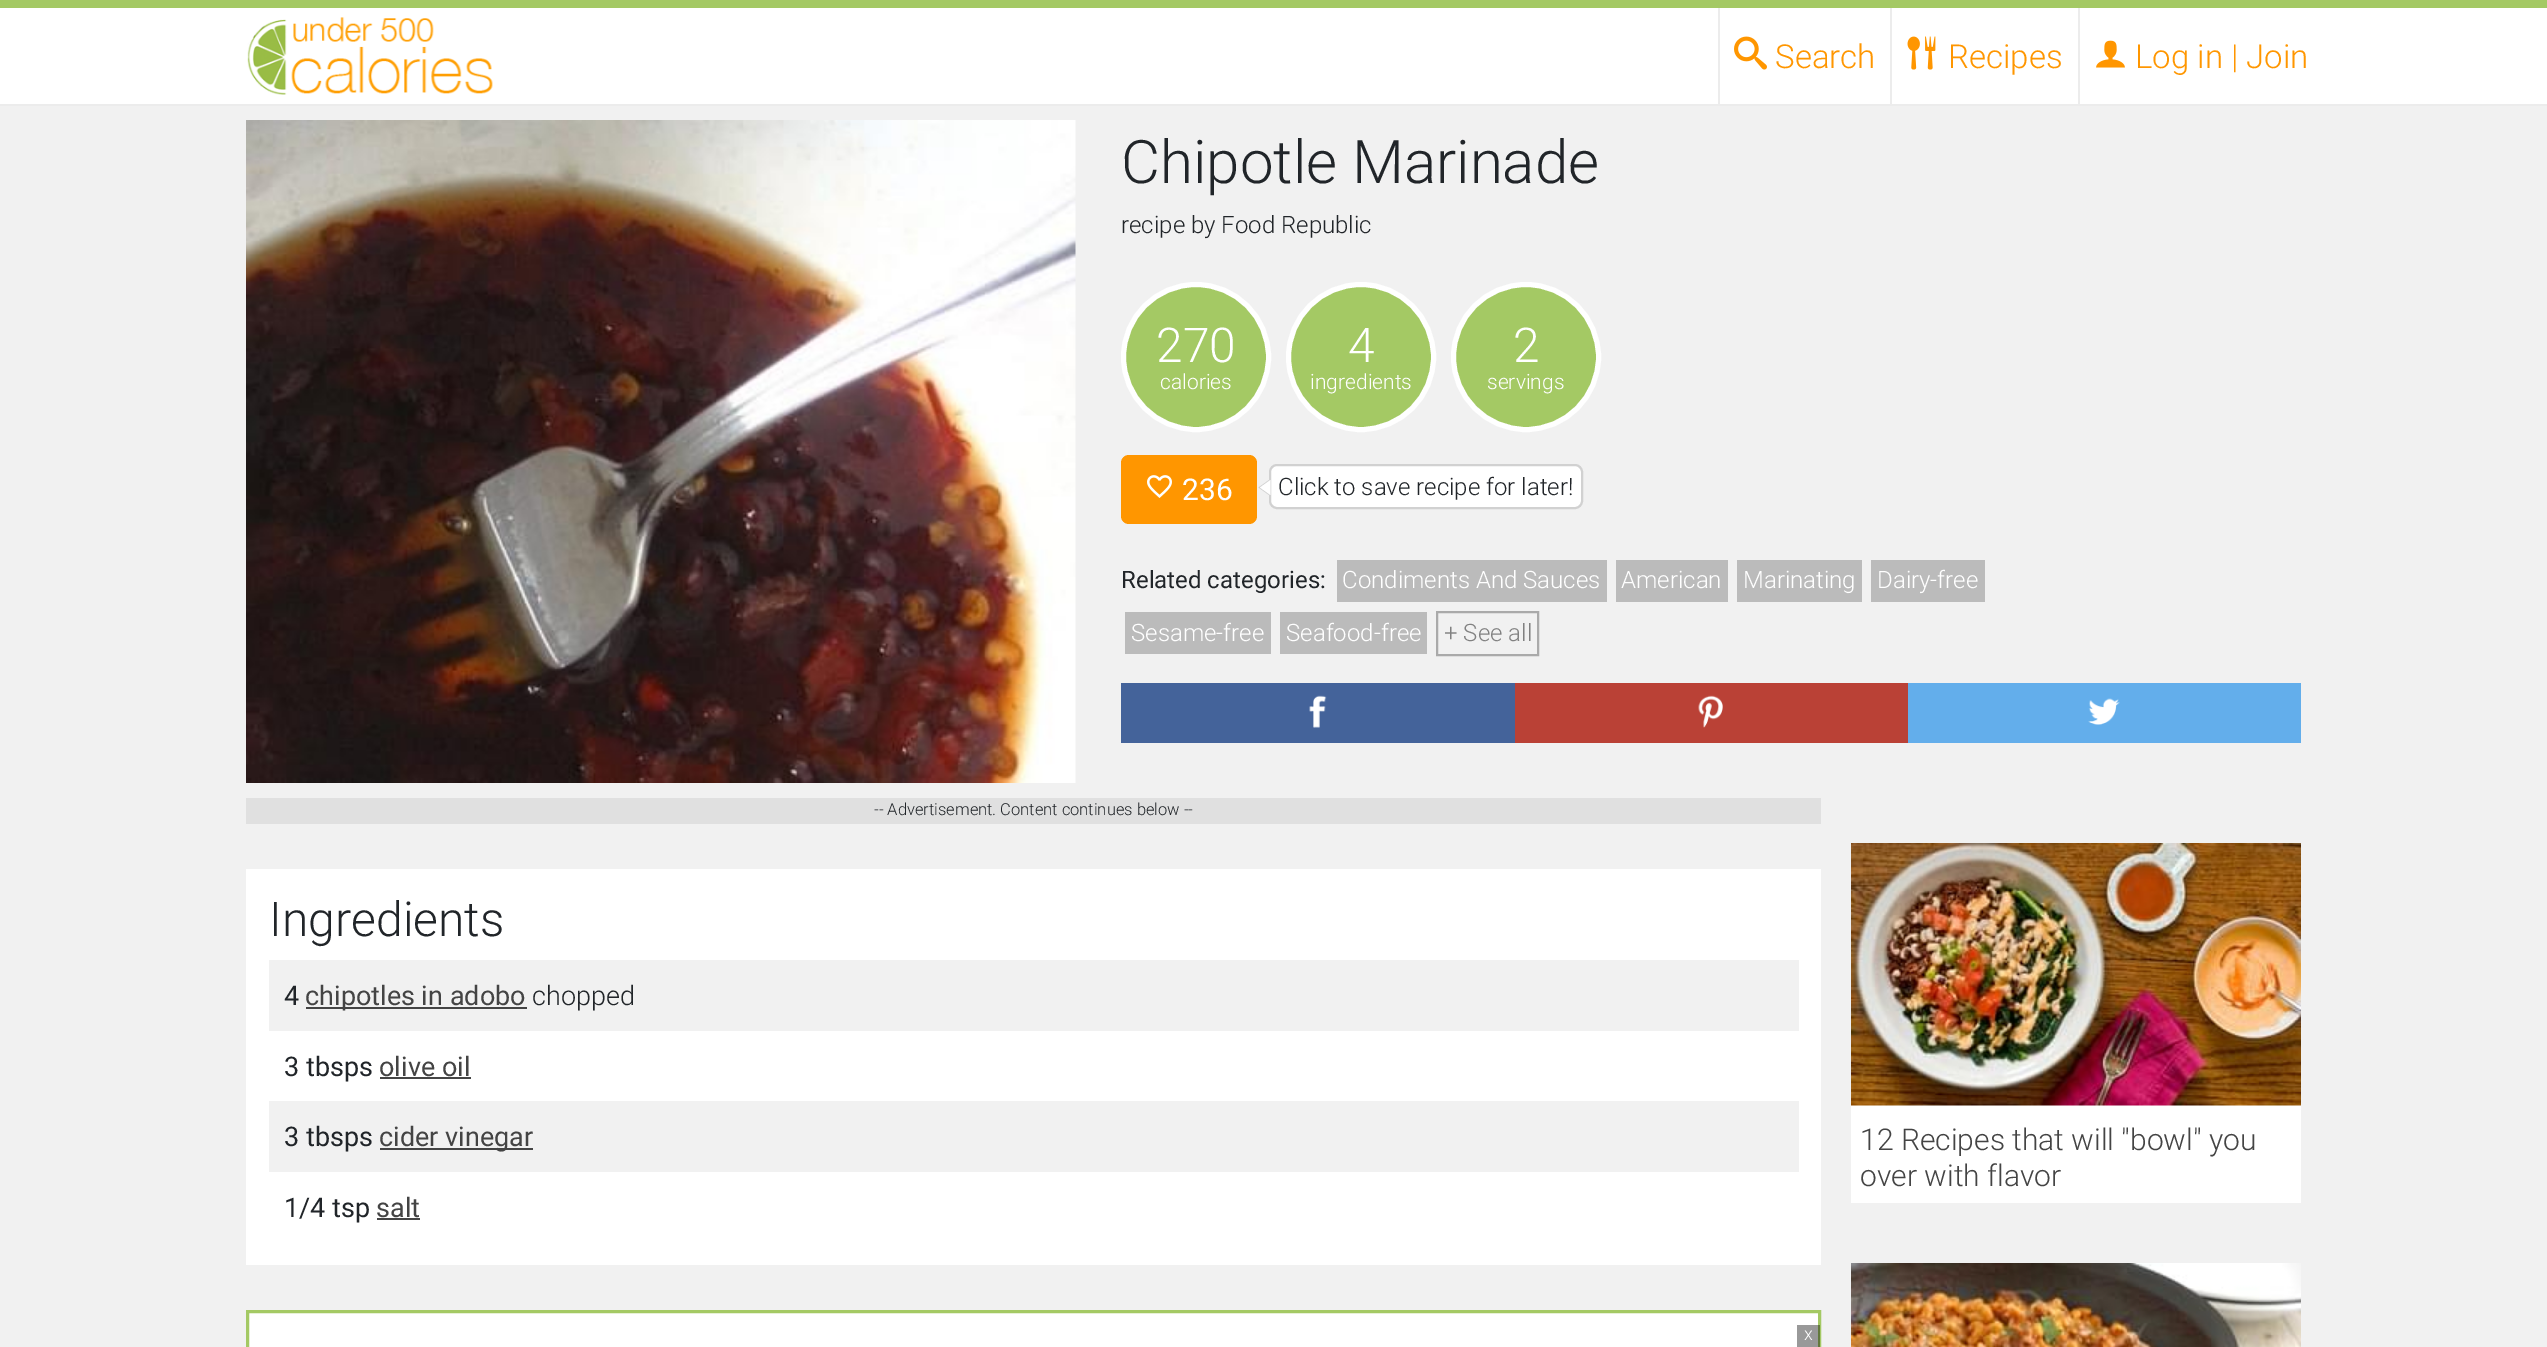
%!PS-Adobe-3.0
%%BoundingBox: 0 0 2547 1347
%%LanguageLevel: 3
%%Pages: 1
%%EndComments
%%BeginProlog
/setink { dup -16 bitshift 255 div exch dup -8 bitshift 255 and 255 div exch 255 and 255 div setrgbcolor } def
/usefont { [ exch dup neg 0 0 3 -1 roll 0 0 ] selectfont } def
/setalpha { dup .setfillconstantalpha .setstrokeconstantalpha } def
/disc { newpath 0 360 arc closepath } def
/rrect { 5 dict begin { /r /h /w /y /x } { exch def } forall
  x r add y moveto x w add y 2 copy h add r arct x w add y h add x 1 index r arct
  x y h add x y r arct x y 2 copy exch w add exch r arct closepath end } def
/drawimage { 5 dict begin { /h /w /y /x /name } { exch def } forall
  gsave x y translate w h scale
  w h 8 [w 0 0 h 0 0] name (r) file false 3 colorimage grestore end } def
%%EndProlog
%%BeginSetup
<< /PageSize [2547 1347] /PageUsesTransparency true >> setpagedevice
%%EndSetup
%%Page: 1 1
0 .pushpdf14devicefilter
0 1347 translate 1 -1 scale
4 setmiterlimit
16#F1F1F1 setink
0 0 2547 1347 rectfill
[
    [0 8 2547 96 16#FFFFFF]
    [0 104 2547 2 16#ECECEC]
    [0 0 2547 8 16#A4C964]
] { aload pop setink rectfill } forall
(img1.raw) 247 17 246 78 drawimage
16#ECECEC setink
1718 8 2 97 rectfill
(img2.raw) 1734 36 33 34 drawimage
/Roboto-Light 33 usefont
16#FF9600 setink
1775 68 moveto (Search) show
16#ECECEC setink
1890 8 2 97 rectfill
(img3.raw) 1907 36 29 34 drawimage
16#FF9600 setink
1948 68 moveto (Recipes) show
16#ECECEC setink
2078 8 2 97 rectfill
(img4.raw) 2096 40 29 28 drawimage
16#FF9600 setink
2135 68 moveto (Log in | Join) show
(img5.raw) 246 120 830 663 drawimage
/Roboto-Light 60 usefont
16#212529 setink
1121 183 moveto (Chipotle Marinade) show
/Roboto-Light 24 usefont
1121 233 moveto (recipe by Food Republic) show
16#A4C964 setink
1196 357 72.5 disc gsave fill grestore
16#FFFFFF setink
5 setlinewidth
stroke
/Roboto-Light 48 usefont
1156 362 moveto (270) show
/Roboto-Light 21 usefont
1160 389 moveto (calories) show
16#A4C964 setink
1361 357 72.5 disc gsave fill grestore
16#FFFFFF setink
stroke
/Roboto-Light 48 usefont
1348 362 moveto (4) show
/Roboto-Light 21 usefont
1310 389 moveto (ingredients) show
16#A4C964 setink
1526 357 72.5 disc gsave fill grestore
16#FFFFFF setink
stroke
/Roboto-Light 48 usefont
1513 362 moveto (2) show
/Roboto-Light 21 usefont
1487 389 moveto (servings) show
16#FF9600 setink
1121 455 136 69 8 rrect fill
(img6.raw) 1147 475 25 23 drawimage
/Roboto-Regular 30 usefont
16#FFFFFF setink
1182 500 moveto (236) show
1270 465 312 43 7 rrect gsave fill grestore
16#D1D1D1 setink
2 setlinewidth
stroke
1269 480 moveto 1269 495 lineto 1258.5 487.5 lineto closepath fill
/Roboto-Light 24 usefont
16#212529 setink
1278 495 moveto (Click to save recipe for later!) show
16#FFFFFF setink
1270.5 480 moveto 1270.5 495 lineto 1260 487.5 lineto closepath fill
/Roboto-Regular 24 usefont
16#212529 setink
1121 588 moveto (Related categories:) show
16#BBBBBB setink
1337 560 270 42 rectfill
/Roboto-Light 24 usefont
16#FFFFFF setink
1342 588 moveto (Condiments And Sauces) show
16#BBBBBB setink
1616 560 112 42 rectfill
16#FFFFFF setink
1621 588 moveto (American) show
16#BBBBBB setink
1737 560 125 42 rectfill
16#FFFFFF setink
1743 588 moveto (Marinating) show
16#BBBBBB setink
1871 560 114 42 rectfill
16#FFFFFF setink
1877 588 moveto (Dairy-free) show
16#BBBBBB setink
1125 612 146 42 rectfill
16#FFFFFF setink
1131 641 moveto (Sesame-free) show
16#BBBBBB setink
1280 612 147 42 rectfill
16#FFFFFF setink
1286 641 moveto (Seafood-free) show
16#AAAAAA setink
1437 612 101 43 rectstroke
16#818181 setink
1444 641 moveto (+ See all) show
16#44639A setink
1121 683 394 60 rectfill
(img7.raw) 1309 695 18 33 drawimage
16#BA4136 setink
1515 683 393 60 rectfill
(img8.raw) 1698 695 25 33 drawimage
16#63AEEB setink
1908 683 393 60 rectfill
(img9.raw) 2088 698 32 27 drawimage
16#E0E0E0 setink
246 798 1575 26 rectfill
/Roboto-Light 16.5 usefont
16#212529 setink
874 815 moveto (-- Advertisement. Content continues below --) show
16#FFFFFF setink
246 869 1575 396 rectfill
/Roboto-Light 48 usefont
16#212529 setink
269 936 moveto (Ingredients) show
16#F1F1F1 setink
269 960 1530 71 rectfill
/Roboto-Regular 27 usefont
16#212529 setink
284 1005 moveto (4) show
16#444444 setink
306 1007 221 2 rectfill
305 1005 moveto (chipotles in adobo) show
/Roboto-Light 27 usefont
16#212529 setink
532 1005 moveto (chopped) show
/Roboto-Regular 27 usefont
284 1076 moveto (3 tbsps) show
16#444444 setink
379 1076 moveto (olive oil) show
380 1077 91 2 rectfill
16#F1F1F1 setink
269 1101 1530 71 rectfill
16#212529 setink
284 1146 moveto (3 tbsps) show
16#444444 setink
380 1148 153 2 rectfill
379 1146 moveto (cider vinegar) show
16#212529 setink
284 1217 moveto (1/4 tsp) show
16#444444 setink
376 1217 moveto (salt) show
377 1218 43 2 rectfill
16#FFFFFF setink
247.5 1311.5 moveto 1819.5 1311.5 lineto 1819.5 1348.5 lineto 247.5 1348.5 lineto closepath gsave fill grestore
16#A4C964 setink
3 setlinewidth
stroke
16#FFFFFF setink
1851 1105 450 98 rectfill
(img10.raw) 1851 843 450 263 drawimage
/Roboto-Light 30 usefont
16#444444 setink
1860 1150 moveto (12 Recipes that will "bowl" you) show
1860 1186 moveto (over with flavor) show
(img11.raw) 1851 1263 450 84 drawimage
0.4 setalpha
16#000000 setink
1797 1325 23 22 rectfill
/Roboto-Light 18 usefont
1 setalpha
16#FFFFFF setink
1804 1340 moveto (x) show
.poppdf14devicefilter showpage
%%EOF
